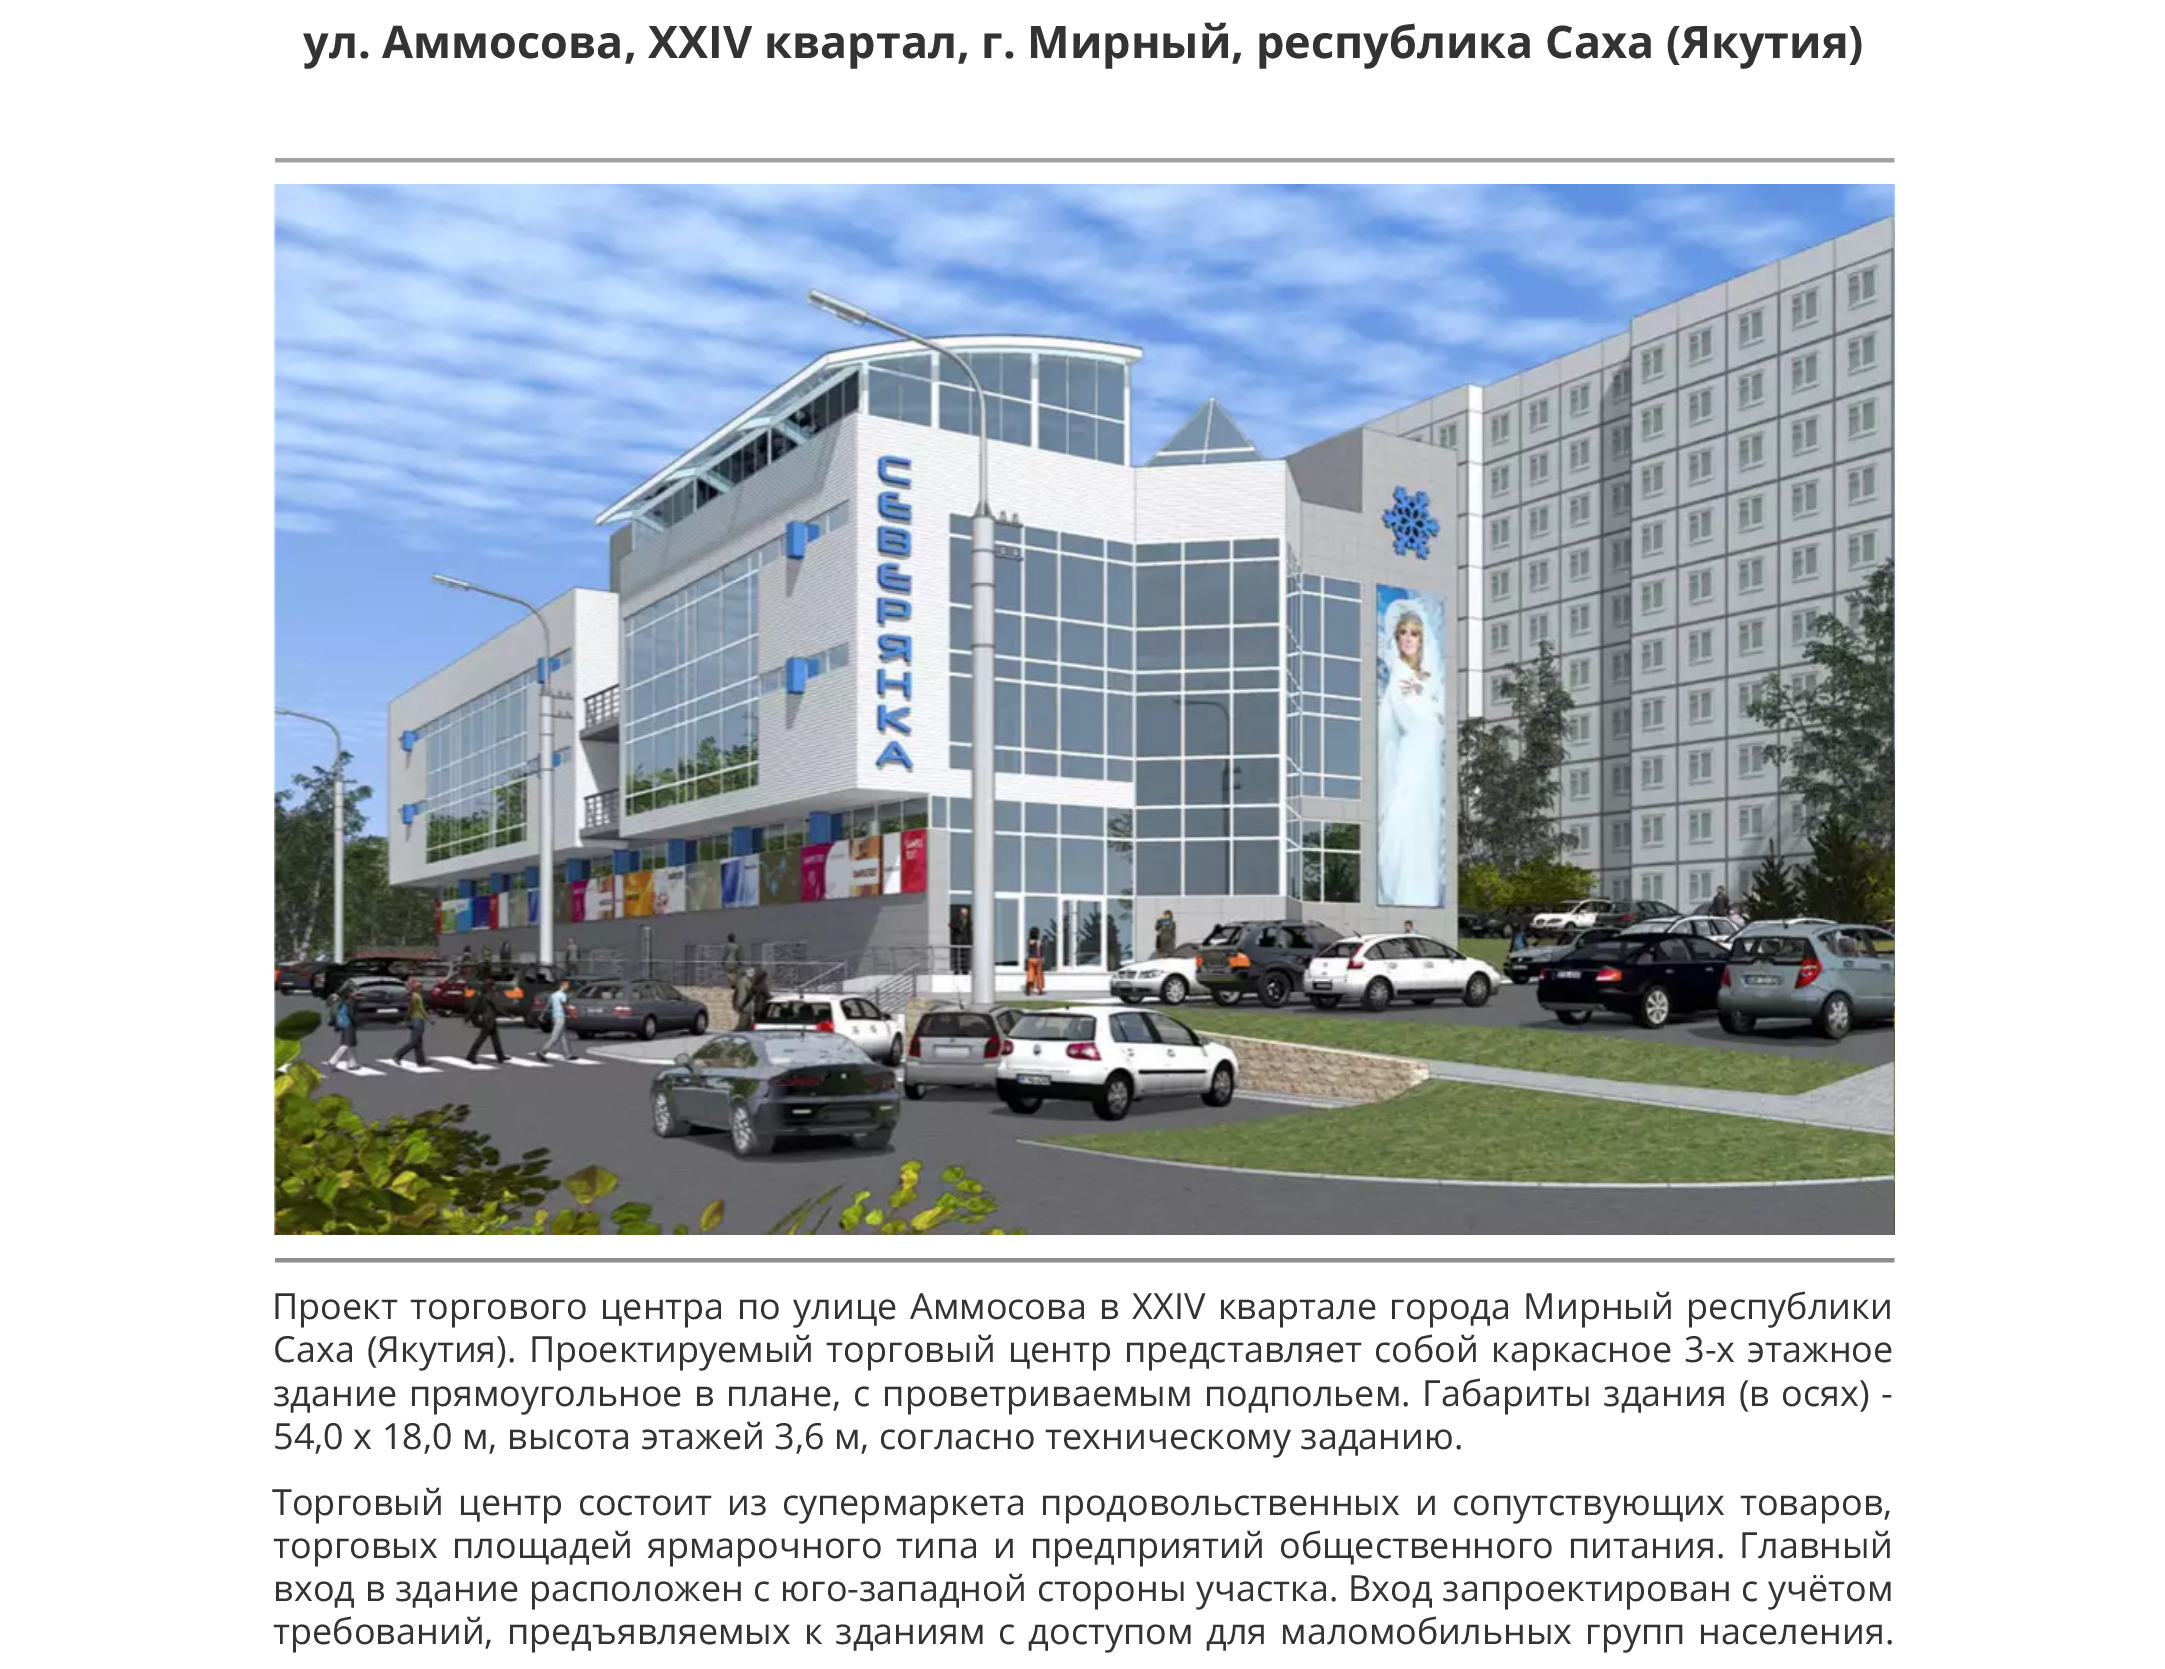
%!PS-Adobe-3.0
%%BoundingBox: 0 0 2165 1669
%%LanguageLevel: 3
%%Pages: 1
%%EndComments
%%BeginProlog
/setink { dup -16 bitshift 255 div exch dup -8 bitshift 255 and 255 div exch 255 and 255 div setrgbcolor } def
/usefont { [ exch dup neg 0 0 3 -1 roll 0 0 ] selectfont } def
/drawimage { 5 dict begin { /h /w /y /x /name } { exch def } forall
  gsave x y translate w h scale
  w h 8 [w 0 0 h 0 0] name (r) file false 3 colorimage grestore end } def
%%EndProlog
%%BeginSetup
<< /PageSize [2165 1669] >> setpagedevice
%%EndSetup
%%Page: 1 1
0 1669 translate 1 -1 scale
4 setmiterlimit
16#FFFFFF setink
0 0 2165 1669 rectfill
/OpenSans-Bold 45 usefont
16#333333 setink
303 58 moveto (ул. Аммосова, XXIV квартал, г. Мирный, республика Саха \(Якутия\)) show
gsave
275 158 1620 5 rectclip
16#A2A2A2 setink
4.5 setlinewidth
1894.5 160 moveto 274.5 160 lineto stroke
grestore
(img1.raw) 274 184 1621 1051 drawimage
(img2.raw) 1893 184 2 1051 drawimage
gsave
275 1258 1620 5 rectclip
16#8D8D8D setink
4.5 setlinewidth
1894.5 1260 moveto 274.5 1260 lineto stroke
grestore
/OpenSans-Regular 36 usefont
272 1319 moveto 3.1 0 32 (Проект торгового центра по улице Аммосова в XXIV квартале города Мирный республики) widthshow
273 1362 moveto 2.75 0 32 (Саха \(Якутия\). Проектируемый торговый центр представляет собой каркасное 3-х этажное) widthshow
273 1406 moveto 2.25 0 32 (здание прямоугольное в плане, с проветриваемым подпольем. Габариты здания \(в осях\) -) widthshow
273 1449 moveto (54,0 х 18,0 м, высота этажей 3,6 м, согласно техническому заданию.) show
272 1515 moveto 5.25 0 32 (Торговый центр состоит из супермаркета продовольственных и сопутствующих товаров,) widthshow
273 1558 moveto 4.75 0 32 (торговых площадей ярмарочного типа и предприятий общественного питания. Главный) widthshow
273 1601 moveto 0.4 0 32 (вход в здание расположен с юго-западной стороны участка. Вход запроектирован с учётом) widthshow
273 1644 moveto 3.5 0 32 (требований, предъявляемых к зданиям с доступом для маломобильных групп населения.) widthshow
showpage
%%EOF
